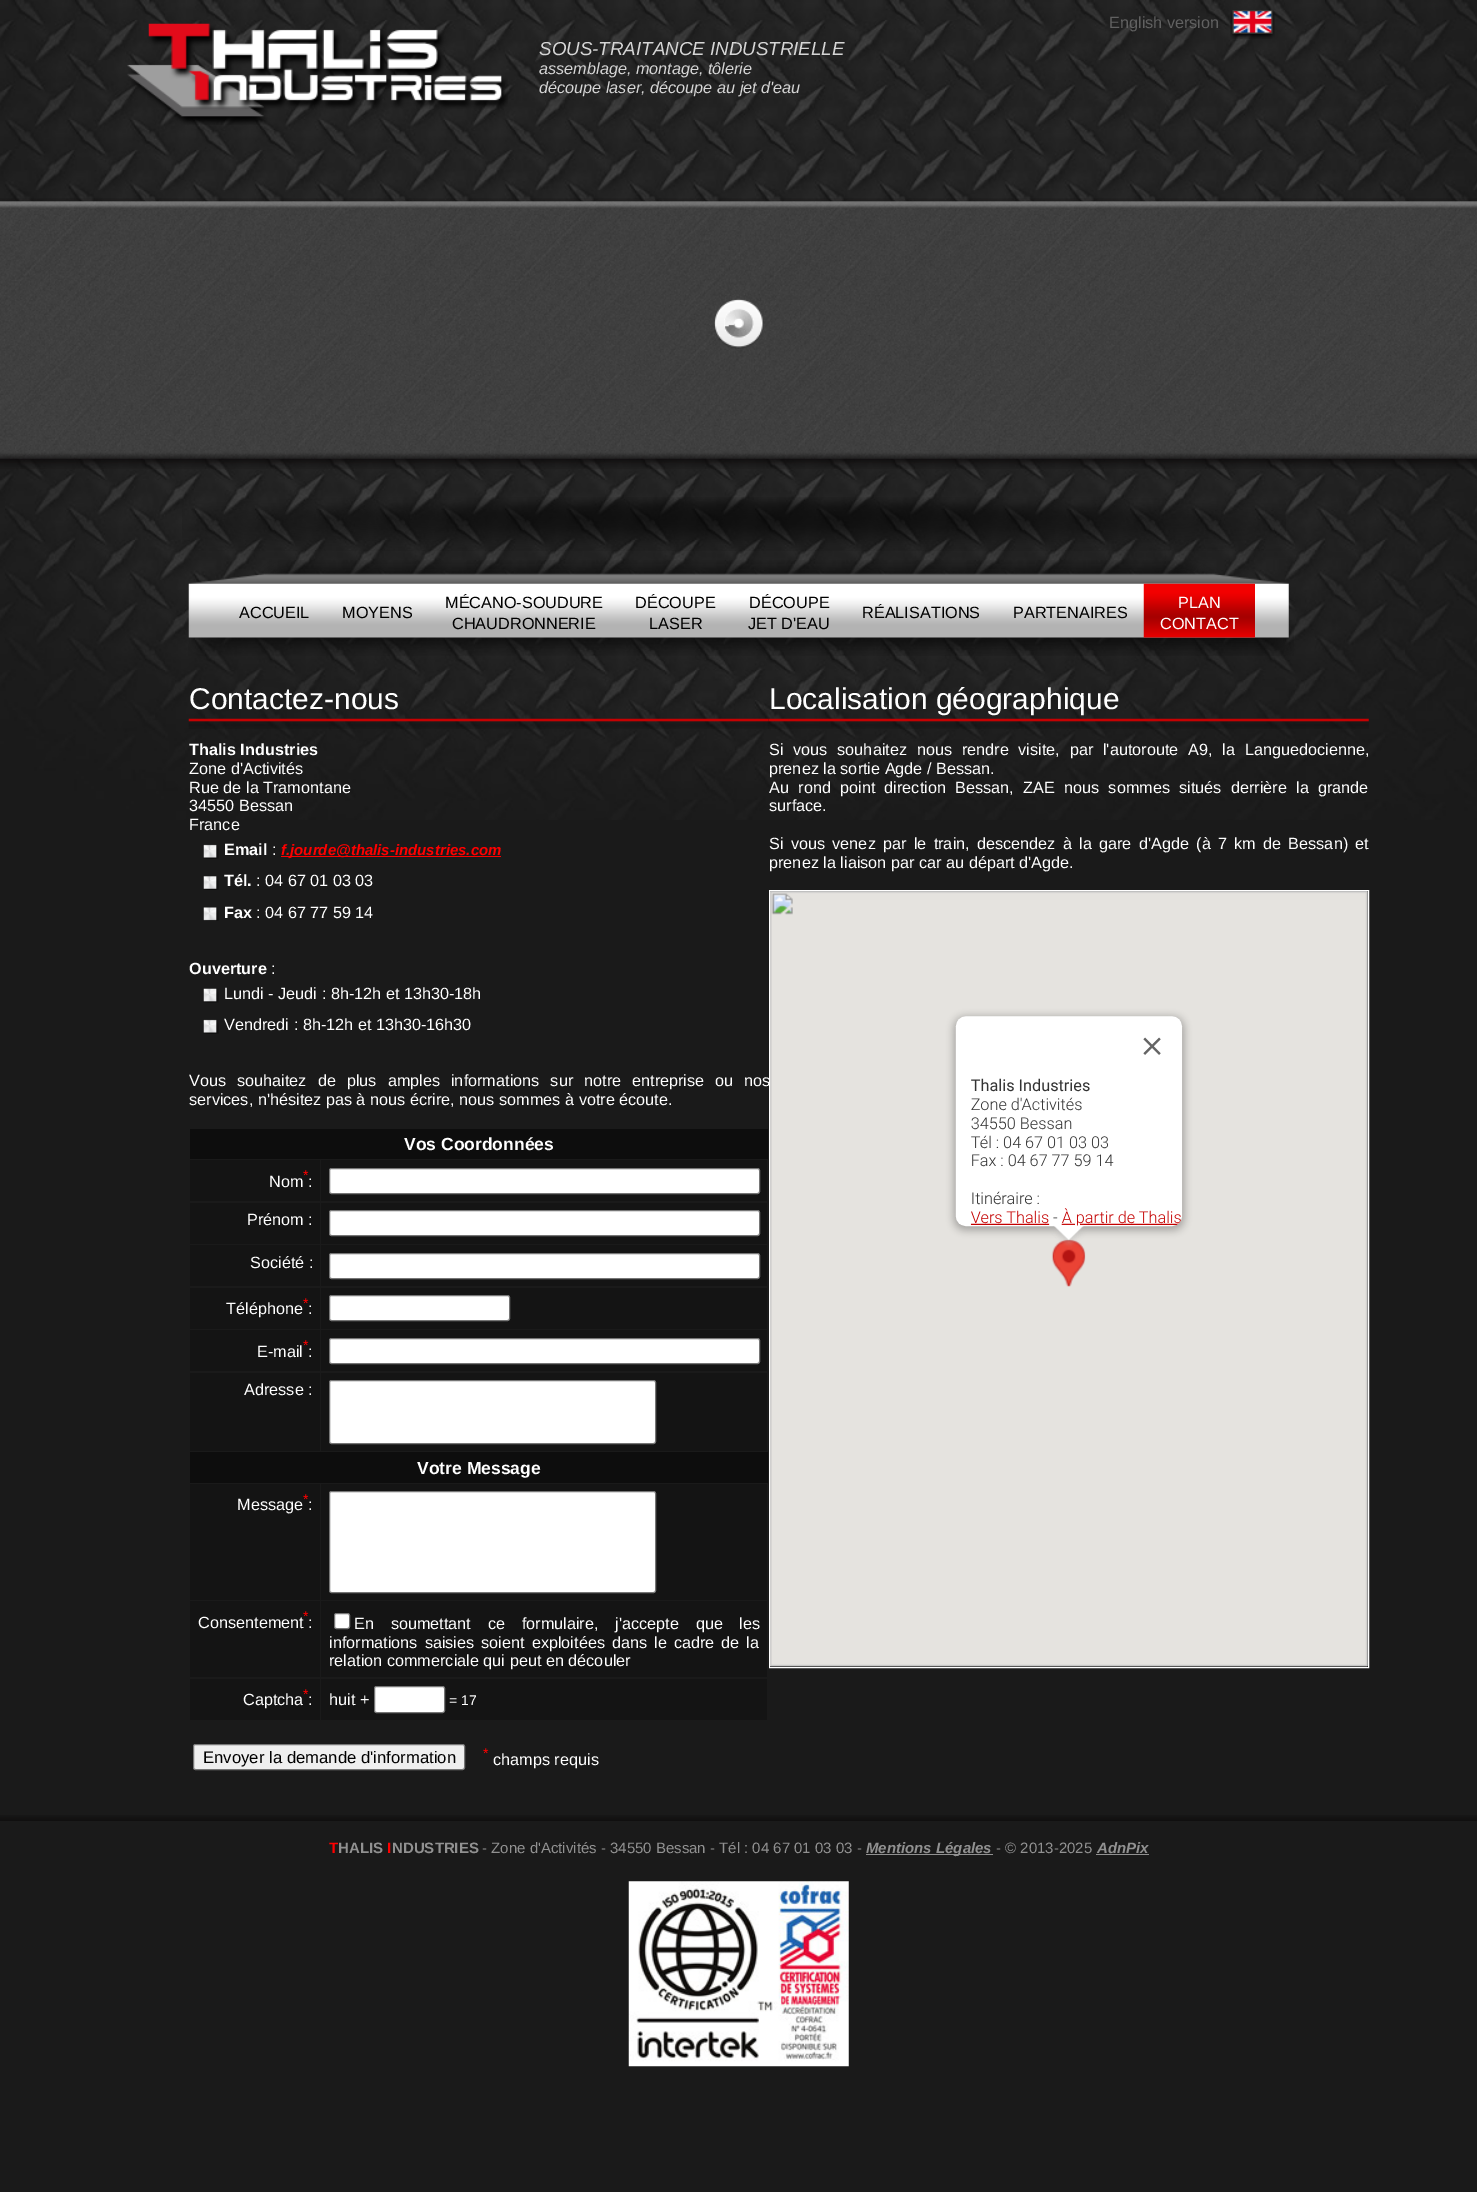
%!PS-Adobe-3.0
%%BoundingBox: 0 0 1477 2192
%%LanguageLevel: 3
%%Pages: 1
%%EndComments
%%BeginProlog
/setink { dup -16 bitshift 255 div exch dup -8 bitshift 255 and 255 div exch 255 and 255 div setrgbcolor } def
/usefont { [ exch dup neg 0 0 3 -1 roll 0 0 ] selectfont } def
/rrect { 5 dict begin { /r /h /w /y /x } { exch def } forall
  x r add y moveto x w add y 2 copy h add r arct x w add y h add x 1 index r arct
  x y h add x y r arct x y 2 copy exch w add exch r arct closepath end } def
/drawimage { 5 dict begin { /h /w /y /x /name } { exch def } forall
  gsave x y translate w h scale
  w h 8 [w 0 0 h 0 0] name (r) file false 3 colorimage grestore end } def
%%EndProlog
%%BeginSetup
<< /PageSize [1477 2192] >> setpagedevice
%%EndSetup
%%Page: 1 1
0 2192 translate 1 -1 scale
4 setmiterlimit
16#1A1A1A setink
0 0 1477 2192 rectfill
(img1.raw) 0 0 1477 820 drawimage
(img2.raw) 0 198 1477 271 drawimage
(img3.raw) 127 23 381 102 drawimage
/LiberationSans-Italic 18.75 usefont
16#D5D5D5 setink
539 55 moveto (SOUS-TRAITANCE INDUSTRIELLE) show
/LiberationSans-Italic 16.25 usefont
539 74 moveto (assemblage, montage, tôlerie) show
539 93 moveto (découpe laser, découpe au jet d'eau) show
(img4.raw) 1230 10 45 29 drawimage
/LiberationSans-Regular 16.25 usefont
16#616161 setink
1109 28 moveto (English version) show
(img5.raw) 714 298 49 51 drawimage
(img6.raw) 724 308 30 30 drawimage
(img7.raw) 182 497 1104 54 drawimage
(img8.raw) 188 560 1106 96 drawimage
16#000000 setink
[
    [(ACCUEIL) 239 618]
    [(MOYENS) 342 618]
    [(MÉCANO-SOUDURE) 445 608]
    [(CHAUDRONNERIE) 452 629]
    [(DÉCOUPE) 635 608]
    [(LASER) 649 629]
    [(DÉCOUPE) 749 608]
    [(JET D'EAU) 748 629]
    [(RÉALISATIONS) 862 618]
    [(PARTENAIRES) 1013 618]
] { aload pop moveto show } forall
(img9.raw) 1143 583 112 55 drawimage
16#FFFFFF setink
1178 608 moveto (PLAN) show
1160 629 moveto (CONTACT) show
(img10.raw) 188 718 581 11 drawimage
/LiberationSans-Regular 30 usefont
189 709 moveto (Contactez-nous) show
/LiberationSans-Bold 16.25 usefont
189 755 moveto (Thalis Industries) show
/LiberationSans-Regular 16.25 usefont
[
    [(Zone d'Activités) 189 774]
    [(Rue de la Tramontane) 189 793]
    [(34550 Bessan) 189 811]
    [(France) 189 830]
] { aload pop moveto show } forall
(img11.raw) 203 844 16 15 drawimage
/LiberationSans-Bold 16.25 usefont
224 855 moveto (Email) show
/LiberationSans-Regular 16.25 usefont
272 855 moveto (:) show
16#FF0000 setink
281 856 220 1 rectfill
/LiberationSans-BoldItalic 15 usefont
281 855 moveto (f.jourde@thalis-industries.com) show
(img12.raw) 203 876 16 14 drawimage
/LiberationSans-Bold 16.25 usefont
16#FFFFFF setink
224 886 moveto (Tél.) show
/LiberationSans-Regular 16.25 usefont
256 886 moveto (: 04 67 01 03 03) show
(img13.raw) 203 907 16 14 drawimage
/LiberationSans-Bold 16.25 usefont
224 918 moveto (Fax) show
/LiberationSans-Regular 16.25 usefont
256 918 moveto (: 04 67 77 59 14) show
/LiberationSans-Bold 16.25 usefont
189 974 moveto (Ouverture) show
/LiberationSans-Regular 16.25 usefont
271 974 moveto (:) show
(img14.raw) 203 988 16 15 drawimage
224 999 moveto (Lundi - Jeudi : 8h-12h et 13h30-18h) show
(img11.raw) 203 1019 16 15 drawimage
224 1030 moveto (Vendredi : 8h-12h et 13h30-16h30) show
189 1086 moveto 6.5 0 32 (Vous souhaitez de plus amples informations sur notre entreprise ou nos) widthshow
189 1105 moveto (services, n'hésitez pas à nous écrire, nous sommes à votre écoute.) show
16#0D0D0D setink
190 1129 578 30 rectfill
/LiberationSans-Bold 17.5 usefont
16#FFFFFF setink
404 1150 moveto (Vos Coordonnées) show
16#141414 setink
190 1160 130 41 rectfill
/LiberationSans-Regular 14 usefont
16#FF0000 setink
303 1180 moveto (*) show
/LiberationSans-Regular 16.25 usefont
16#FFFFFF setink
269 1187 moveto (Nom) show
308 1187 moveto (:) show
16#141414 setink
321 1160 446 41 rectfill
16#FFFFFF setink
329.5 1168.5 430 25 2 rrect gsave fill grestore
16#767676 setink
stroke
16#141414 setink
190 1203 130 41 rectfill
16#FFFFFF setink
247 1225 moveto (Prénom :) show
16#141414 setink
321 1203 446 41 rectfill
16#FFFFFF setink
329.5 1210.5 430 25 2 rrect gsave fill grestore
16#767676 setink
stroke
16#141414 setink
190 1245 130 41 rectfill
16#FFFFFF setink
250 1268 moveto (Société :) show
16#141414 setink
321 1245 446 41 rectfill
16#FFFFFF setink
329.5 1253.5 430 25 2 rrect gsave fill grestore
16#767676 setink
stroke
16#141414 setink
190 1288 130 41 rectfill
/LiberationSans-Regular 14 usefont
16#FF0000 setink
303 1308 moveto (*) show
/LiberationSans-Regular 16.25 usefont
16#FFFFFF setink
226 1314 moveto (Téléphone) show
308 1314 moveto (:) show
16#141414 setink
321 1288 446 41 rectfill
16#FFFFFF setink
329.5 1295.5 180 25 2 rrect gsave fill grestore
16#767676 setink
stroke
16#141414 setink
190 1330 130 41 rectfill
/LiberationSans-Regular 14 usefont
16#FF0000 setink
303 1350 moveto (*) show
/LiberationSans-Regular 16.25 usefont
16#FFFFFF setink
257 1357 moveto (E-mail) show
308 1357 moveto (:) show
16#141414 setink
321 1330 446 41 rectfill
16#FFFFFF setink
329.5 1338.5 430 25 2 rrect gsave fill grestore
16#767676 setink
stroke
16#141414 setink
190 1373 130 78 rectfill
16#FFFFFF setink
244 1395 moveto (Adresse :) show
16#141414 setink
321 1373 446 78 rectfill
16#FFFFFF setink
329.5 1380.5 326 63 2 rrect gsave fill grestore
16#767676 setink
stroke
16#0D0D0D setink
190 1452 578 31 rectfill
/LiberationSans-Bold 17.5 usefont
16#FFFFFF setink
417 1474 moveto (Votre Message) show
16#141414 setink
190 1484 130 116 rectfill
/LiberationSans-Regular 14 usefont
16#FF0000 setink
303 1504 moveto (*) show
/LiberationSans-Regular 16.25 usefont
16#FFFFFF setink
237 1510 moveto (Message) show
308 1510 moveto (:) show
16#141414 setink
321 1484 446 116 rectfill
16#FFFFFF setink
329.5 1491.5 326 101 2 rrect gsave fill grestore
16#767676 setink
stroke
16#141414 setink
190 1601 130 76 rectfill
/LiberationSans-Regular 14 usefont
16#FF0000 setink
303 1621 moveto (*) show
/LiberationSans-Regular 16.25 usefont
16#FFFFFF setink
198 1628 moveto (Consentement) show
308 1628 moveto (:) show
16#141414 setink
321 1601 446 76 rectfill
16#FFFFFF setink
334.5 1613.5 15 15 2 rrect gsave fill grestore
16#767676 setink
stroke
16#FFFFFF setink
354 1629 moveto 12.25 0 32 (En soumettant ce formulaire, j'accepte que les) widthshow
329 1648 moveto 2.5 0 32 (informations saisies soient exploitées dans le cadre de la) widthshow
329 1666 moveto (relation commerciale qui peut en découler) show
16#141414 setink
190 1679 130 41 rectfill
/LiberationSans-Regular 14 usefont
16#FF0000 setink
303 1699 moveto (*) show
/LiberationSans-Regular 16.25 usefont
16#FFFFFF setink
243 1705 moveto (Captcha) show
308 1705 moveto (:) show
16#141414 setink
321 1679 446 41 rectfill
16#FFFFFF setink
329 1705 moveto (huit +) show
374.5 1686.5 70 26 2 rrect gsave fill grestore
16#767676 setink
stroke
/LiberationSans-Regular 14 usefont
16#FFFFFF setink
449 1705 moveto (= 17) show
16#EFEFEF setink
193.5 1744.5 271 25 2 rrect gsave fill grestore
16#767676 setink
stroke
/LiberationSans-Regular 16.7 usefont
16#000000 setink
203 1763 moveto (Envoyer la demande d'information) show
/LiberationSans-Regular 14 usefont
16#FF0000 setink
483 1758 moveto (*) show
/LiberationSans-Regular 16.25 usefont
16#FFFFFF setink
493 1765 moveto (champs requis) show
(img15.raw) 768 718 601 11 drawimage
/LiberationSans-Regular 30 usefont
769 709 moveto (Localisation géographique) show
/LiberationSans-Regular 16.25 usefont
769 755 moveto 5.25 0 32 (Si vous souhaitez nous rendre visite, par l'autoroute A9, la Languedocienne,) widthshow
769 774 moveto (prenez la sortie Agde / Bessan.) show
769 793 moveto 4.75 0 32 (Au rond point direction Bessan, ZAE nous sommes situés derrière la grande) widthshow
769 811 moveto (surface.) show
769 849 moveto 2.75 0 32 (Si vous venez par le train, descendez à la gare d'Agde \(à 7 km de Bessan\) et) widthshow
769 868 moveto (prenez la liaison par car au départ d'Agde.) show
769.5 890.5 599 777 rectstroke
(img16.raw) 770 891 598 776 drawimage
(img17.raw) 0 1815 1477 6 drawimage
/LiberationSans-Bold 15 usefont
16#FF0000 setink
329 1853 moveto (T) show
16#919191 setink
338 1853 moveto (HALIS) show
16#FF0000 setink
387 1853 moveto (I) show
16#919191 setink
392 1853 moveto (NDUSTRIES) show
/LiberationSans-Regular 15 usefont
482 1853 moveto (- Zone d'Activités - 34550 Bessan - Tél : 04 67 01 03 03 -) show
866 1854 127 1 rectfill
/LiberationSans-BoldItalic 15 usefont
866 1853 moveto (Mentions Légales) show
/LiberationSans-Regular 15 usefont
996 1853 moveto (- © 2013-2025) show
/LiberationSans-BoldItalic 15 usefont
1097 1853 moveto (AdnPix) show
1096 1854 53 1 rectfill
(img18.raw) 628 1881 221 186 drawimage
showpage
%%EOF
